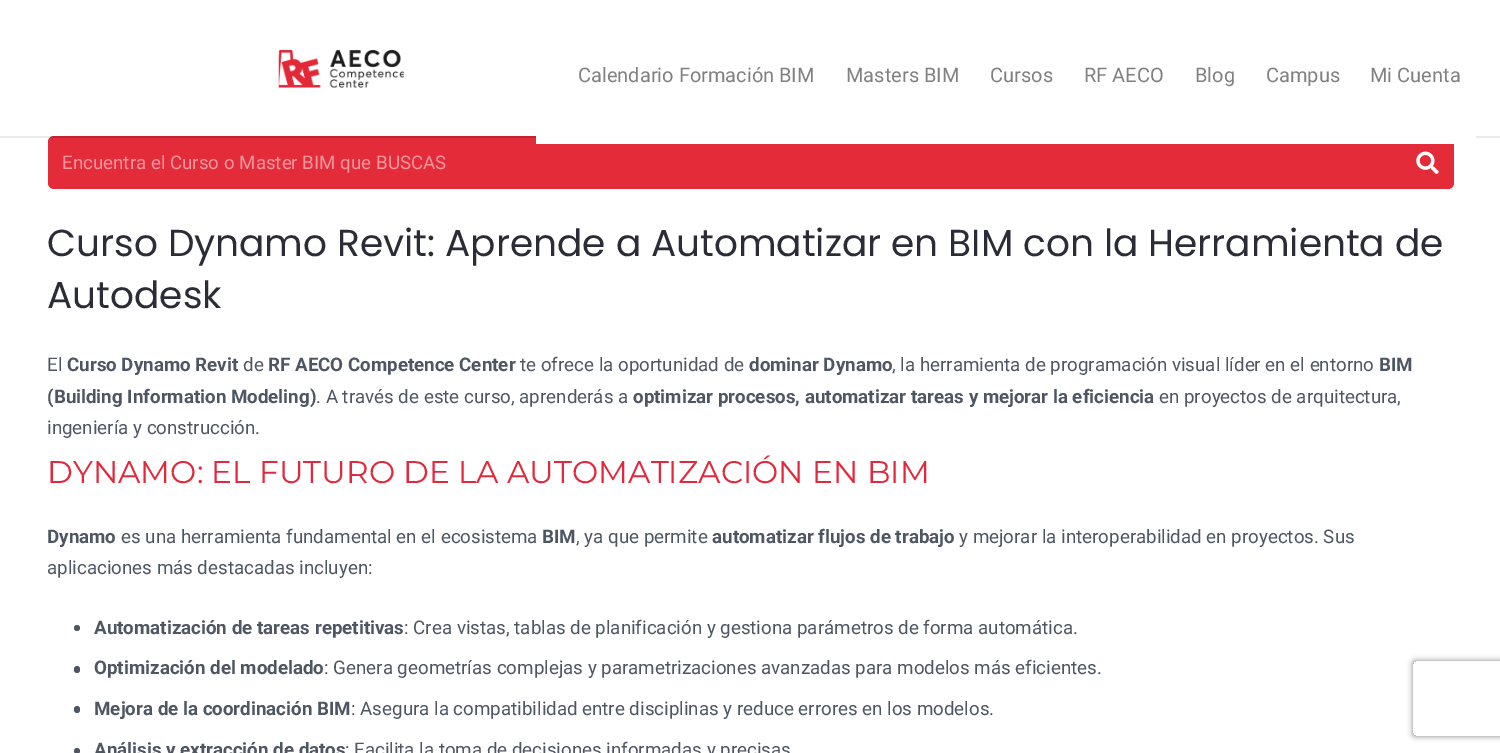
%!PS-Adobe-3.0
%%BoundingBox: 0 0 1500 753
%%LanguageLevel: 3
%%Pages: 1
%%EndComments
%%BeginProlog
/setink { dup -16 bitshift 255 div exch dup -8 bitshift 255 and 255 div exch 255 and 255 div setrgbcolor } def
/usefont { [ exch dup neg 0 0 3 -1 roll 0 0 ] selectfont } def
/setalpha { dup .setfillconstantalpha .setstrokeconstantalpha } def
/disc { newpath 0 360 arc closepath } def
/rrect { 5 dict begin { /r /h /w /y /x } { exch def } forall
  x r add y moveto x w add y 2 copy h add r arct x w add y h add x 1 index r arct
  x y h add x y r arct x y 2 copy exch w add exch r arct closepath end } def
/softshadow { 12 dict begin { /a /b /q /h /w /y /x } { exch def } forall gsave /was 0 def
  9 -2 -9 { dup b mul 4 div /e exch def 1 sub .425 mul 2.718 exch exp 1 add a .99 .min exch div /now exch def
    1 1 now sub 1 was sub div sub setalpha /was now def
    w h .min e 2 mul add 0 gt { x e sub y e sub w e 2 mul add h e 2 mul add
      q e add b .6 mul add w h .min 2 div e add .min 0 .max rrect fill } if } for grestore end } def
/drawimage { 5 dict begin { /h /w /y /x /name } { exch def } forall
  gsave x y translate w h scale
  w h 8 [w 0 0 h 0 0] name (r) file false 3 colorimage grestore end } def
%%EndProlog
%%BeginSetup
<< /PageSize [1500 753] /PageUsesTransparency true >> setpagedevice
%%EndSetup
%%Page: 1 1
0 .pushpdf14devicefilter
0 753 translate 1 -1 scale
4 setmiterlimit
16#FFFFFF setink
0 0 1500 753 rectfill
16#E42B39 setink
48 136 1406 53 6 rrect fill
0.08 setalpha
16#000000 setink
53 138 moveto 1448 138 lineto 1451 138 1454 140 1454 143 curveto 1454 139 1452 136 1448 136 curveto 54 136 lineto 50 136 48 139 48 143 curveto 48 140 50 138 53 138 curveto closepath fill
0 136 1500 2 rectfill
1 setalpha
(img1.raw) 278 50 126 38 drawimage
16#FFFFFF setink
536 136 940 8 rectfill
/Roboto-Regular 20 usefont
16#808080 setink
[
    [(Calendario Formación BIM) 578 82]
    [(Masters BIM) 846 82]
    [(Cursos) 990 82]
    [(RF AECO) 1084 82]
    [(Blog) 1195 82]
    [(Campus) 1266 82]
    [(Mi Cuenta) 1370 82]
] { aload pop moveto show } forall
/Roboto-Regular 18.75 usefont
16#F2959C setink
62 169 moveto (Encuentra el Curso o Master BIM que BUSCAS) show
(img2.raw) 1416 151 23 23 drawimage
/Poppins-Regular 37.5 usefont
16#2B2C36 setink
47 256 moveto (Curso Dynamo Revit: Aprende a Automatizar en BIM con la Herramienta de) show
47 308 moveto (Autodesk) show
/Roboto-Regular 18.75 usefont
16#4E5663 setink
47 371 moveto (El) show
/Roboto-Bold 18.75 usefont
67 371 moveto (Curso Dynamo Revit) show
/Roboto-Regular 18.75 usefont
243 371 moveto (de) show
/Roboto-Bold 18.75 usefont
268 371 moveto (RF AECO Competence Center) show
/Roboto-Regular 18.75 usefont
520 371 moveto (te ofrece la oportunidad de) show
/Roboto-Bold 18.75 usefont
749 371 moveto (dominar Dynamo) show
/Roboto-Regular 18.75 usefont
892 371 moveto (, la herramienta de programación visual líder en el entorno) show
/Roboto-Bold 18.75 usefont
1379 371 moveto (BIM) show
47 403 moveto (\(Building Information Modeling\)) show
/Roboto-Regular 18.75 usefont
316 403 moveto (. A través de este curso, aprenderás a) show
/Roboto-Bold 18.75 usefont
633 403 moveto (optimizar procesos, automatizar tareas y mejorar la eficiencia) show
/Roboto-Regular 18.75 usefont
1159 403 moveto (en proyectos de arquitectura,) show
47 434 moveto (ingeniería y construcción.) show
/Montserrat-Thin 31.25 usefont
16#E1283D setink
47 483 moveto (DYNAMO: EL FUTURO DE LA AUTOMATIZACIÓN EN BIM) show
/Roboto-Bold 18.75 usefont
16#4E5663 setink
47 543 moveto (Dynamo) show
/Roboto-Regular 18.75 usefont
121 543 moveto (es una herramienta fundamental en el ecosistema) show
/Roboto-Bold 18.75 usefont
542 543 moveto (BIM) show
/Roboto-Regular 18.75 usefont
576 543 moveto (, ya que permite) show
/Roboto-Bold 18.75 usefont
712 543 moveto (automatizar flujos de trabajo) show
/Roboto-Regular 18.75 usefont
959 543 moveto (y mejorar la interoperabilidad en proyectos. Sus) show
47 574 moveto (aplicaciones más destacadas incluyen:) show
77 628 3 disc fill
/Roboto-Bold 18.75 usefont
94 634 moveto (Automatización de tareas repetitivas) show
/Roboto-Regular 18.75 usefont
404 634 moveto (: Crea vistas, tablas de planificación y gestiona parámetros de forma automática.) show
74 666 6 7 3 rrect fill
/Roboto-Bold 18.75 usefont
94 674 moveto (Optimización del modelado) show
/Roboto-Regular 18.75 usefont
324 674 moveto (: Genera geometrías complejas y parametrizaciones avanzadas para modelos más eficientes.) show
74 706 6 7 3 rrect fill
/Roboto-Bold 18.75 usefont
94 715 moveto (Mejora de la coordinación BIM) show
/Roboto-Regular 18.75 usefont
351 715 moveto (: Asegura la compatibilidad entre disciplinas y reduce errores en los modelos.) show
77 751 3 disc fill
/Roboto-Bold 18.75 usefont
94 756 moveto (Análisis y extracción de datos) show
/Roboto-Regular 18.75 usefont
345 756 moveto (: Facilita la toma de decisiones informadas y precisas) show
gsave
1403 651 moveto 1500 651 lineto 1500 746 lineto 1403 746 lineto closepath 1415.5 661 moveto 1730.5 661 lineto 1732 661 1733 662 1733 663.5 curveto 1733 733.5 lineto 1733 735 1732 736 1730.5 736 curveto 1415.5 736 lineto 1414 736 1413 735 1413 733.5 curveto 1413 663.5 lineto 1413 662 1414 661 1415.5 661 curveto closepath eoclip newpath
16#808080 setink
1413 661 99 75 2.5 3 1 softshadow
grestore
.poppdf14devicefilter showpage
%%EOF
